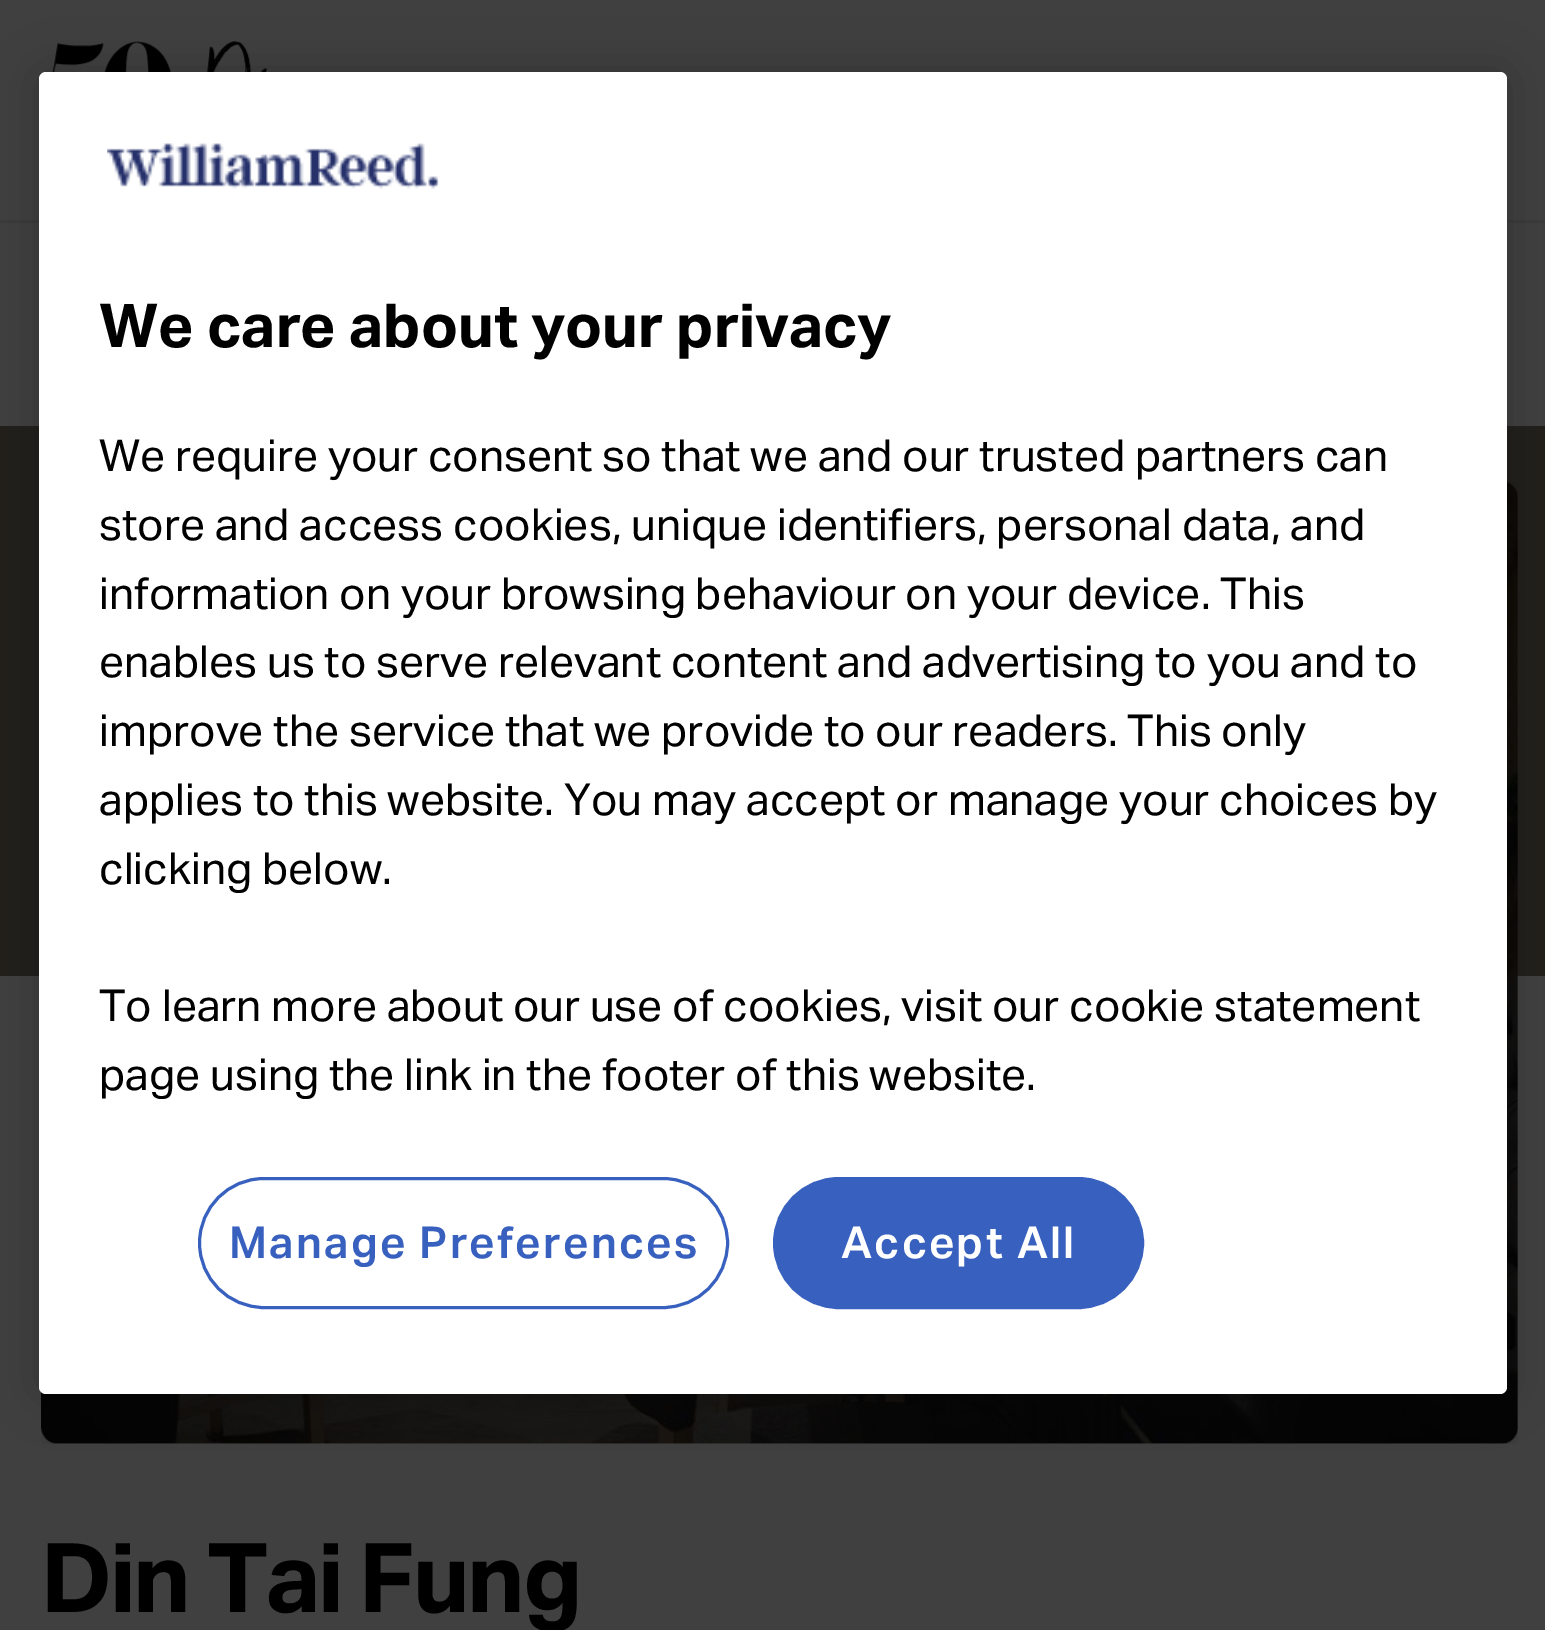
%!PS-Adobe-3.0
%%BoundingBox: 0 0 1545 1630
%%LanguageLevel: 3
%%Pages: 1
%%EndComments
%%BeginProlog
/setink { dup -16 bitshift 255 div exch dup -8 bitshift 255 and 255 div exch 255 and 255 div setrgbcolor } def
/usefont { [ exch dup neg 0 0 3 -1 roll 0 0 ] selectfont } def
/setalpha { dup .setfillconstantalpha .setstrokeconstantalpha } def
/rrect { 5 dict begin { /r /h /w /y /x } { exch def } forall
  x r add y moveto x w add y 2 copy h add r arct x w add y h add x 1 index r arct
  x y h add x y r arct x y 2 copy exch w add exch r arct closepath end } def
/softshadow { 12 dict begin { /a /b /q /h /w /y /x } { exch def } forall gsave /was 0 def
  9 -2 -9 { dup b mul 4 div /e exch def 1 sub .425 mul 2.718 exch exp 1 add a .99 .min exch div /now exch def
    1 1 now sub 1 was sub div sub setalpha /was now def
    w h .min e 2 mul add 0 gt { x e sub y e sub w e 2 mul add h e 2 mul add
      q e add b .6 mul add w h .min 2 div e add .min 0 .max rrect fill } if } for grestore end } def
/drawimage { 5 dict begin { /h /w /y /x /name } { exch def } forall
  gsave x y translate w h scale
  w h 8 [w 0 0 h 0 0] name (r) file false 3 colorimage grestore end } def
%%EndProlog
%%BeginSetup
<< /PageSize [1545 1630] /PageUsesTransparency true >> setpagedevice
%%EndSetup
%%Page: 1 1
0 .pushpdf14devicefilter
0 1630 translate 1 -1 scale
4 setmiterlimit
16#404040 setink
0 0 1545 1630 rectfill
16#3A3A3A setink
0 220 1545 3 rectfill
(img2.raw) 52 41 216 31 drawimage
16#221F1B setink
0 426 1545 550 rectfill
(img3.raw) 41 481 1477 963 drawimage
16#000000 setink
39 72 1468 1322 7 25 0.2 softshadow
16#FFFFFF setink
39 72 1468 1322 7 rrect fill
(img1.raw) 107 143 332 46 drawimage
/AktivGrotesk-Bold 60.5 usefont
16#000000 setink
99 347 moveto (We care about your privacy) show
/AktivGrotesk-Regular 44 usefont
[
    [(We require your consent so that we and our trusted partners can) 99 471]
    [(store and access cookies, unique identifiers, personal data, and) 99 540]
    [(information on your browsing behaviour on your device. This) 99 609]
    [(enables us to serve relevant content and advertising to you and to) 99 677]
    [(improve the service that we provide to our readers. This only) 99 746]
    [(applies to this website. You may accept or manage your choices by) 99 815]
    [(clicking below.) 99 884]
    [(To learn more about our use of cookies, visit our cookie statement) 99 1021]
    [(page using the link in the footer of this website.) 99 1090]
] { aload pop moveto show } forall
16#3860BE setink
3 setlinewidth
199.5 1178.5 528 129 64.5 rrect stroke
/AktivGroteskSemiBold-SemiBold 44 usefont
229 1258 moveto 2.25 0 (Manage Preferences) ashow
774.5 1178.5 368 129 64.5 rrect gsave fill grestore
stroke
16#FFFFFF setink
841 1258 moveto 2.25 0 (Accept All) ashow
/AktivGrotesk-Bold 96.25 usefont
16#000000 setink
41 1612 moveto -2.4 0 (Din Tai Fung) ashow
.poppdf14devicefilter showpage
%%EOF
